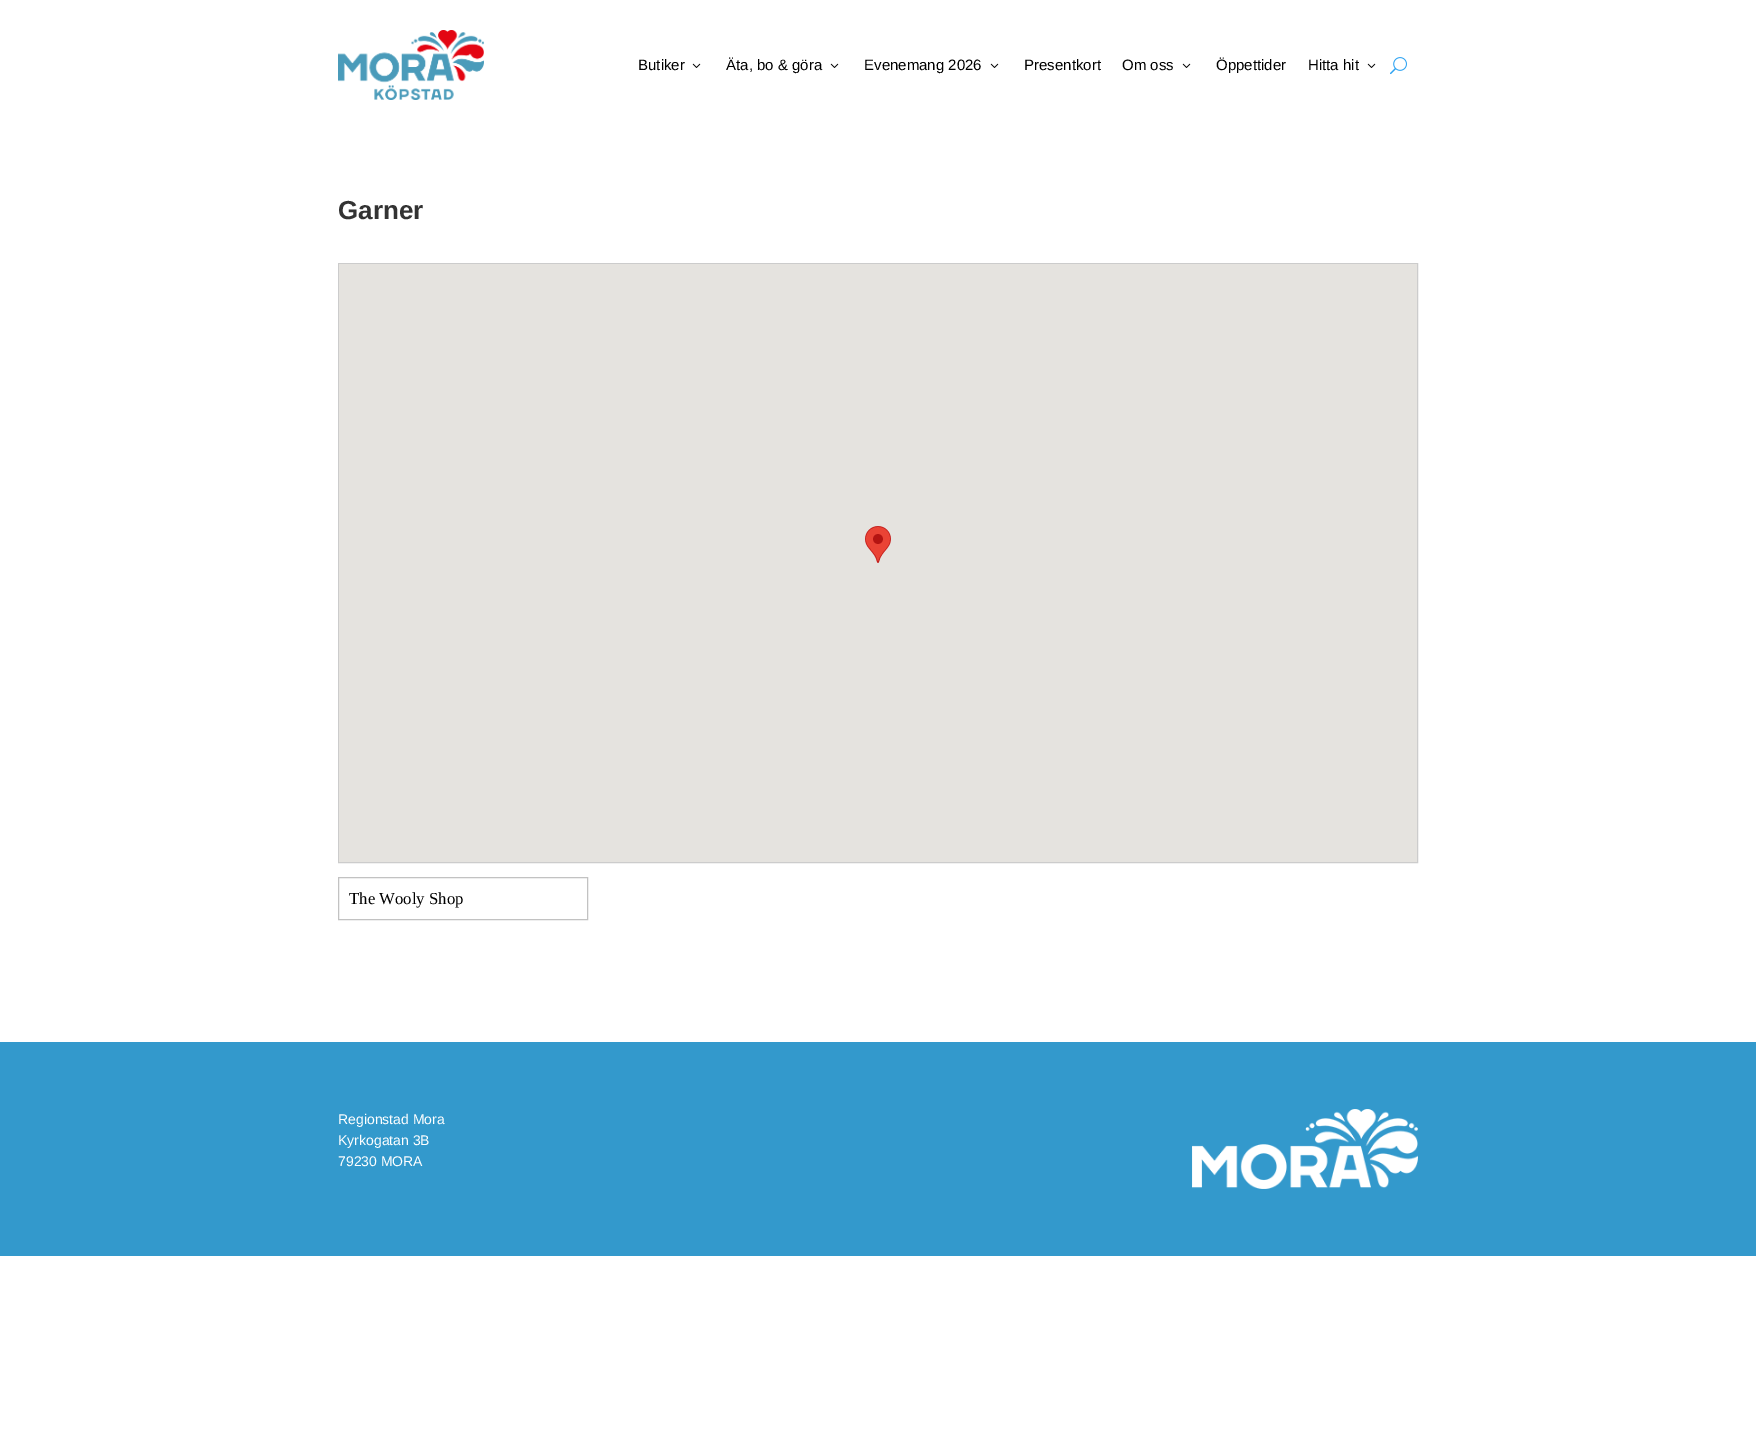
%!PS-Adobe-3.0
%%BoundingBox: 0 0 1756 1450
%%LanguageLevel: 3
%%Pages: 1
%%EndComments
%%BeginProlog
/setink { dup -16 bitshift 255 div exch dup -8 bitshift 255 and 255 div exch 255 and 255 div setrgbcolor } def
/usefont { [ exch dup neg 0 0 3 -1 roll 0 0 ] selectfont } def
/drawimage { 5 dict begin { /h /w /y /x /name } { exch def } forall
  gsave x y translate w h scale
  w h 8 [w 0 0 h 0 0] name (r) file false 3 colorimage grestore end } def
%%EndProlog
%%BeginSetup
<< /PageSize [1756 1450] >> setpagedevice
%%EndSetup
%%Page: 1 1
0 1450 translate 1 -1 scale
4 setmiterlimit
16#FFFFFF setink
0 0 1756 1450 rectfill
(img1.raw) 338 30 146 70 drawimage
/LiberationSans-Regular 15 usefont
16#000000 setink
638 70 moveto (Butiker) show
(img2.raw) 692 63 9 5 drawimage
726 70 moveto (Äta, bo & göra) show
(img2.raw) 830 63 9 5 drawimage
864 70 moveto (Evenemang 2026) show
(img2.raw) 990 63 9 5 drawimage
1024 70 moveto (Presentkort) show
1122 70 moveto (Om oss) show
(img2.raw) 1182 63 9 5 drawimage
1216 70 moveto (Öppettider) show
1308 70 moveto (Hitta hit) show
(img2.raw) 1367 63 9 5 drawimage
(img3.raw) 1390 57 17 18 drawimage
/LiberationSans-Bold 26 usefont
16#333333 setink
338 219 moveto (Garner) show
16#CCCCCC setink
338.5 263.5 1079 599 rectstroke
16#E5E3DF setink
339 264 1078 598 rectfill
(img4.raw) 865 526 26 37 drawimage
16#C2C2C2 setink
338.5 877.5 249 42 rectstroke
/LiberationSerif-Regular 16.75 usefont
16#000000 setink
349 904 moveto (The Wooly Shop) show
16#3399CC setink
0 1042 1756 214 rectfill
/LiberationSans-Regular 14 usefont
16#FFFFFF setink
[
    [(Regionstad Mora) 338 1124]
    [(Kyrkogatan 3B) 338 1145]
    [(79230 MORA) 338 1166]
] { aload pop moveto show } forall
(img5.raw) 1192 1109 226 80 drawimage
showpage
%%EOF
